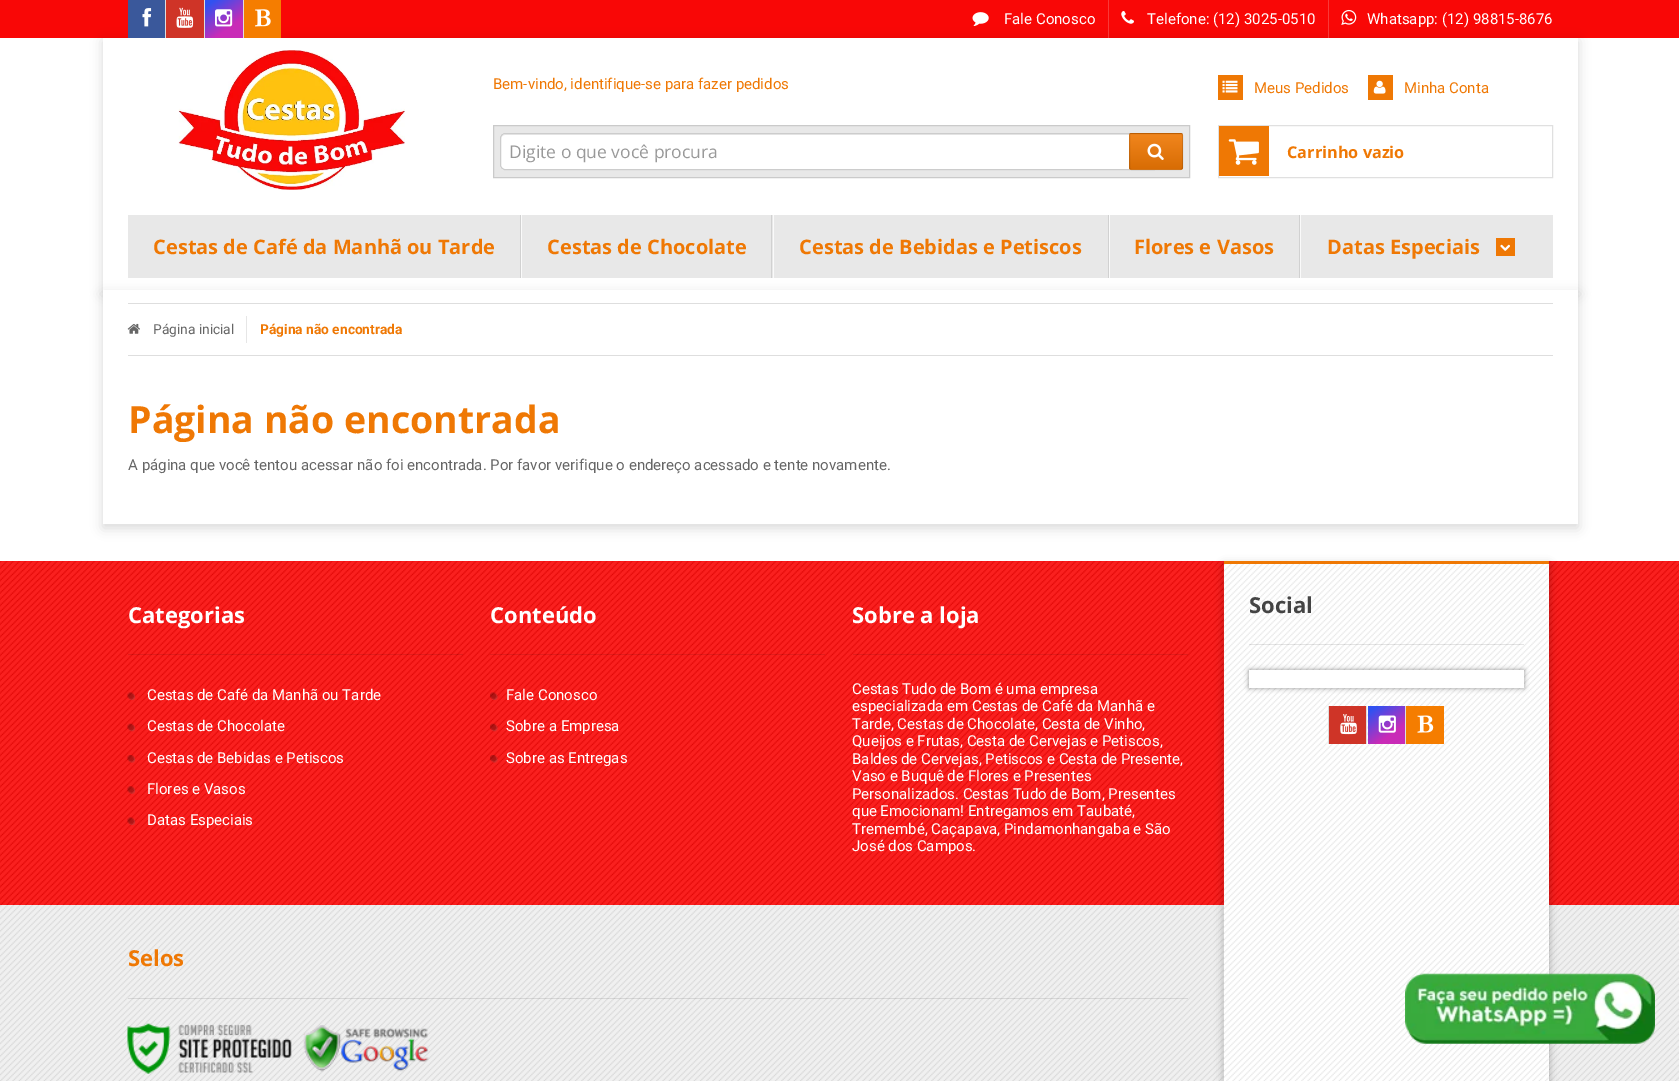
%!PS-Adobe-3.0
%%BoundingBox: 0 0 1679 1081
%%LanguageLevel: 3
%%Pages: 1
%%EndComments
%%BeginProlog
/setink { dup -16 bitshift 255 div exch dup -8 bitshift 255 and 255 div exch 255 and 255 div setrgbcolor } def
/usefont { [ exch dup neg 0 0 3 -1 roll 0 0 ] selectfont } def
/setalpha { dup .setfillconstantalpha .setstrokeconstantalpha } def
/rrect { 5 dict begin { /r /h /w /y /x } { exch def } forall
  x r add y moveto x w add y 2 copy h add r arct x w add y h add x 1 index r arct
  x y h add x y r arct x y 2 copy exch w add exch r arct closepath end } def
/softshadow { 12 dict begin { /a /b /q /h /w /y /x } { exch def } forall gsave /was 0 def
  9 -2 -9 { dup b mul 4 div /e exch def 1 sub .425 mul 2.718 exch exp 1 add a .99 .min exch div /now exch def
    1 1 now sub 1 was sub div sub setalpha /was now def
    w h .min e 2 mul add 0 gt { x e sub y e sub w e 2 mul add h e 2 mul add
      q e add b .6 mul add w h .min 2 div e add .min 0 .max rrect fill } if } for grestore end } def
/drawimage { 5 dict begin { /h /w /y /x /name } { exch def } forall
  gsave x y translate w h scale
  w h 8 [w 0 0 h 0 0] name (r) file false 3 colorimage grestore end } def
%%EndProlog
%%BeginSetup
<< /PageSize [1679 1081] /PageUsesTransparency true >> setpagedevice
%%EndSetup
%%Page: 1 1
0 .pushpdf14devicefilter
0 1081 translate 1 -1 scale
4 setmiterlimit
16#FFFFFF setink
0 0 1679 1081 rectfill
16#F90706 setink
0 0 1679 38 rectfill
16#000000 setink
103 41 1475 253 0 6 0.15 softshadow
16#3A589B setink
128 0 37 38 rectfill
(img1.raw) 142 8 10 19 drawimage
16#DDDDDD setink
165 0 1 38 rectfill
16#CF3427 setink
166 0 38 38 rectfill
(img2.raw) 176 7 18 21 drawimage
16#DDDDDD setink
204 0 1 38 rectfill
gsave 205 0 moveto 243 0 lineto 243 38 lineto 205 38 lineto closepath clip newpath
<< /ShadingType 2 /ColorSpace /DeviceRGB /Coords [209 -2.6 239 40] /Extend [true true] /Function << /FunctionType 3 /Domain [0 1] /Functions [<< /FunctionType 2 /Domain [0 1] /C0 [0.188 0.318 0.945] /C1 [0.188 0.318 0.945] /N 1 >> << /FunctionType 2 /Domain [0 1] /C0 [0.188 0.318 0.945] /C1 [0.788 0.169 0.718] /N 1 >> << /FunctionType 2 /Domain [0 1] /C0 [0.788 0.169 0.718] /C1 [0.788 0.169 0.718] /N 1 >>] /Bounds [0.1 0.7] /Encode [0 1 0 1 0 1] >> >> shfill grestore
(img3.raw) 215 9 18 18 drawimage
243 0 1 38 rectfill
16#F57D00 setink
244 0 37 38 rectfill
(img4.raw) 255 9 16 18 drawimage
(img5.raw) 972 12 17 14 drawimage
/Roboto-Regular 15 usefont
16#FFFFFF setink
1004 24 moveto (Fale Conosco) show
0.2 setalpha
1108 0 1 38 rectfill
1 setalpha
(img6.raw) 1121 11 13 13 drawimage
1147 24 moveto (Telefone: \(12\) 3025-0510) show
0.2 setalpha
1328 0 1 38 rectfill
1 setalpha
(img7.raw) 1341 9 16 16 drawimage
1367 24 moveto (Whatsapp: \(12\) 98815-8676) show
103 38 1475 252 rectfill
(img8.raw) 178 50 227 140 drawimage
16#EF7804 setink
493 89 moveto (Bem-vindo, identifique-se para fazer pedidos) show
1218 75 25 25 rectfill
(img9.raw) 1222 80 16 13 drawimage
1254 93 moveto (Meus Pedidos) show
1368 75 25 25 rectfill
(img10.raw) 1373 80 13 14 drawimage
1404 93 moveto (Minha Conta) show
16#E8E8E8 setink
493.5 125.5 moveto 1189.5 125.5 lineto 1189.5 177.5 lineto 493.5 177.5 lineto closepath gsave fill grestore
16#CACACA setink
stroke
16#FFFFFF setink
500 133 659 37 5 rrect fill
16#ECECEC setink
505 135 moveto 1154 135 lineto 1156 135 1158 137 1158 139 curveto 1158 136 1157 134 1154 134 curveto 505 134 lineto 502 135 lineto 501 136 lineto 501 139 lineto 501 137 503 135 505 135 curveto closepath fill
16#CCCCCC setink
500.5 133.5 658 36 4.5 rrect stroke
/OpenSans-Regular 17.5 usefont
16#999999 setink
509 158 moveto (Digite o que você procura) show
16#EF7804 setink
1129 133 54 37 2.5 rrect fill
0.1 setalpha
gsave 1129 133 moveto 1183 133 lineto 1183 134 lineto 1129 134 lineto closepath clip newpath
<< /ShadingType 2 /ColorSpace /DeviceRGB /Coords [1156 99 1156 134] /Extend [true true] /Function << /FunctionType 2 /Domain [0 1] /C0 [1 1 1] /C1 [0 0 0] /N 1 >> >> shfill grestore
gsave 1129 134 moveto 1183 134 lineto 1183 169 lineto 1129 169 lineto closepath clip newpath
<< /ShadingType 2 /ColorSpace /DeviceRGB /Coords [1156 134 1156 169] /Extend [true true] /Function << /FunctionType 2 /Domain [0 1] /C0 [1 1 1] /C1 [0 0 0] /N 1 >> >> shfill grestore
gsave 1129 169 moveto 1183 169 lineto 1183 170 lineto 1129 170 lineto closepath clip newpath
<< /ShadingType 2 /ColorSpace /DeviceRGB /Coords [1156 169 1156 204] /Extend [true true] /Function << /FunctionType 2 /Domain [0 1] /C0 [1 1 1] /C1 [0 0 0] /N 1 >> >> shfill grestore
0.13 setalpha
16#000000 setink
1129.5 133.5 53 36 2 rrect stroke
1 setalpha
(img11.raw) 1147 143 17 17 drawimage
16#E0E0E0 setink
1218.5 125.5 334 52 rectstroke
16#EF7804 setink
1219 126 50 50 rectfill
(img12.raw) 1228 139 31 26 drawimage
/OpenSans-Bold 16.25 usefont
1287 158 moveto (Carrinho vazio) show
16#E8E8E8 setink
128 215 1425 63 rectfill
16#000000 setink
103 294 1475 234 0 6 0.15 softshadow
16#D1D1D1 setink
520 215 1 63 rectfill
/OpenSans-Bold 20 usefont
16#EF7804 setink
153 254 moveto (Cestas de Café da Manhã ou Tarde) show
16#D1D1D1 setink
771 215 1 63 rectfill
16#FAFAFA setink
521 215 1 63 rectfill
16#EF7804 setink
547 254 moveto (Cestas de Chocolate) show
16#D1D1D1 setink
1108 215 1 63 rectfill
16#FAFAFA setink
773 215 1 63 rectfill
16#EF7804 setink
799 254 moveto (Cestas de Bebidas e Petiscos) show
16#D1D1D1 setink
1299 215 1 63 rectfill
16#FAFAFA setink
1109 215 1 63 rectfill
16#EF7804 setink
1134 254 moveto (Flores e Vasos) show
16#FAFAFA setink
1300 215 1 63 rectfill
16#EF7804 setink
1327 254 moveto (Datas Especiais) show
1496 238 19 18 rectfill
(img13.raw) 1500 244 10 7 drawimage
[
    [103 290 1475 234 16#FFFFFF]
    [128 303 1425 1 16#DEDEDE]
    [128 355 1425 1 16#DEDEDE]
] { aload pop setink rectfill } forall
(img14.raw) 127 323 13 11 drawimage
/Roboto-Regular 13.75 usefont
16#666666 setink
153 334 moveto (Página inicial) show
16#E6E6E6 setink
246 316 1 27 rectfill
/Roboto-Bold 13.75 usefont
16#EF7804 setink
260 334 moveto (Página não encontrada) show
/OpenSans-Bold 37.5 usefont
128 433 moveto (Página não encontrada) show
/Roboto-Regular 15 usefont
16#666666 setink
128 470 moveto (A página que você tentou acessar não foi encontrada. Por favor verifique o endereço acessado e tente novamente.) show
16#F90706 setink
0 561 1679 344 rectfill
(img15.raw) 0 561 1679 344 drawimage
0.1 setalpha
16#000000 setink
128 654 335 1 rectfill
/OpenSans-Bold 22 usefont
1 setalpha
16#FFFFFF setink
128 623 moveto (Categorias) show
(img16.raw) 127 692 8 8 drawimage
/Roboto-Regular 15 usefont
147 700 moveto (Cestas de Café da Manhã ou Tarde) show
(img17.raw) 127 723 8 9 drawimage
147 731 moveto (Cestas de Chocolate) show
(img18.raw) 127 755 8 8 drawimage
147 763 moveto (Cestas de Bebidas e Petiscos) show
(img19.raw) 127 786 8 8 drawimage
147 794 moveto (Flores e Vasos) show
(img20.raw) 127 817 8 8 drawimage
147 825 moveto (Datas Especiais) show
0.1 setalpha
16#000000 setink
490 654 335 1 rectfill
/OpenSans-Bold 22 usefont
1 setalpha
16#FFFFFF setink
490 623 moveto (Conteúdo) show
(img21.raw) 490 692 8 8 drawimage
/Roboto-Regular 15 usefont
506 700 moveto (Fale Conosco) show
(img22.raw) 490 723 8 9 drawimage
506 731 moveto (Sobre a Empresa) show
(img23.raw) 490 755 8 8 drawimage
506 763 moveto (Sobre as Entregas) show
0.1 setalpha
16#000000 setink
853 654 335 1 rectfill
/OpenSans-Bold 22 usefont
1 setalpha
16#FFFFFF setink
852 623 moveto (Sobre a loja) show
/Roboto-Regular 15 usefont
[
    [(Cestas Tudo de Bom é uma empresa) 852 694]
    [(especializada em Cestas de Café da Manhã e) 852 711]
    [(Tarde, Cestas de Chocolate, Cesta de Vinho,) 852 729]
    [(Queijos e Frutas, Cesta de Cervejas e Petiscos,) 852 746]
    [(Baldes de Cervejas, Petiscos e Cesta de Presente,) 852 764]
    [(Vaso e Buquê de Flores e Presentes) 852 781]
    [(Personalizados. Cestas Tudo de Bom, Presentes) 852 799]
    [(que Emocionam! Entregamos em Taubaté,) 852 816]
    [(Tremembé, Caçapava, Pindamonhangaba e São) 852 834]
    [(José dos Campos.) 852 851]
] { aload pop moveto show } forall
16#EEEEEE setink
0 905 1679 176 rectfill
(img28.raw) 0 905 1679 176 drawimage
16#000000 setink
1224 565 325 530 0 4.5 0.3 softshadow
16#FFFFFF setink
1224 564 325 517 rectfill
(img24.raw) 1223 562 326 519 drawimage
16#EF7804 setink
1224 561 325 3 rectfill
0.1 setalpha
16#000000 setink
1249 644 275 1 rectfill
/OpenSans-Bold 22 usefont
1 setalpha
16#444444 setink
1249 613 moveto (Social) show
16#000000 setink
1249 670 275 18 0 2.5 0.4 softshadow
[
    [1249 670 275 18 16#FFFFFF]
    [1328 706 1 38 16#DDDDDD]
    [1329 706 37 38 16#CF3427]
] { aload pop setink rectfill } forall
(img25.raw) 1340 714 17 21 drawimage
16#DDDDDD setink
1366 706 1 38 rectfill
gsave 1368 706 moveto 1405 706 lineto 1405 744 lineto 1368 744 lineto closepath clip newpath
<< /ShadingType 2 /ColorSpace /DeviceRGB /Coords [1371 704 1401 746] /Extend [true true] /Function << /FunctionType 3 /Domain [0 1] /Functions [<< /FunctionType 2 /Domain [0 1] /C0 [0.188 0.318 0.945] /C1 [0.188 0.318 0.945] /N 1 >> << /FunctionType 2 /Domain [0 1] /C0 [0.188 0.318 0.945] /C1 [0.788 0.169 0.718] /N 1 >> << /FunctionType 2 /Domain [0 1] /C0 [0.788 0.169 0.718] /C1 [0.788 0.169 0.718] /N 1 >>] /Bounds [0.1 0.7] /Encode [0 1 0 1 0 1] >> >> shfill grestore
(img26.raw) 1378 715 18 18 drawimage
1405 706 1 38 rectfill
16#F57D00 setink
1406 706 38 38 rectfill
(img27.raw) 1417 715 17 18 drawimage
0.1 setalpha
16#000000 setink
128 998 1060 1 rectfill
1 setalpha
16#EF7804 setink
128 966 moveto (Selos) show
(img29.raw) 127 1023 165 51 drawimage
(img30.raw) 303 1025 126 47 drawimage
(img31.raw) 1405 973 250 71 drawimage
.poppdf14devicefilter showpage
%%EOF
